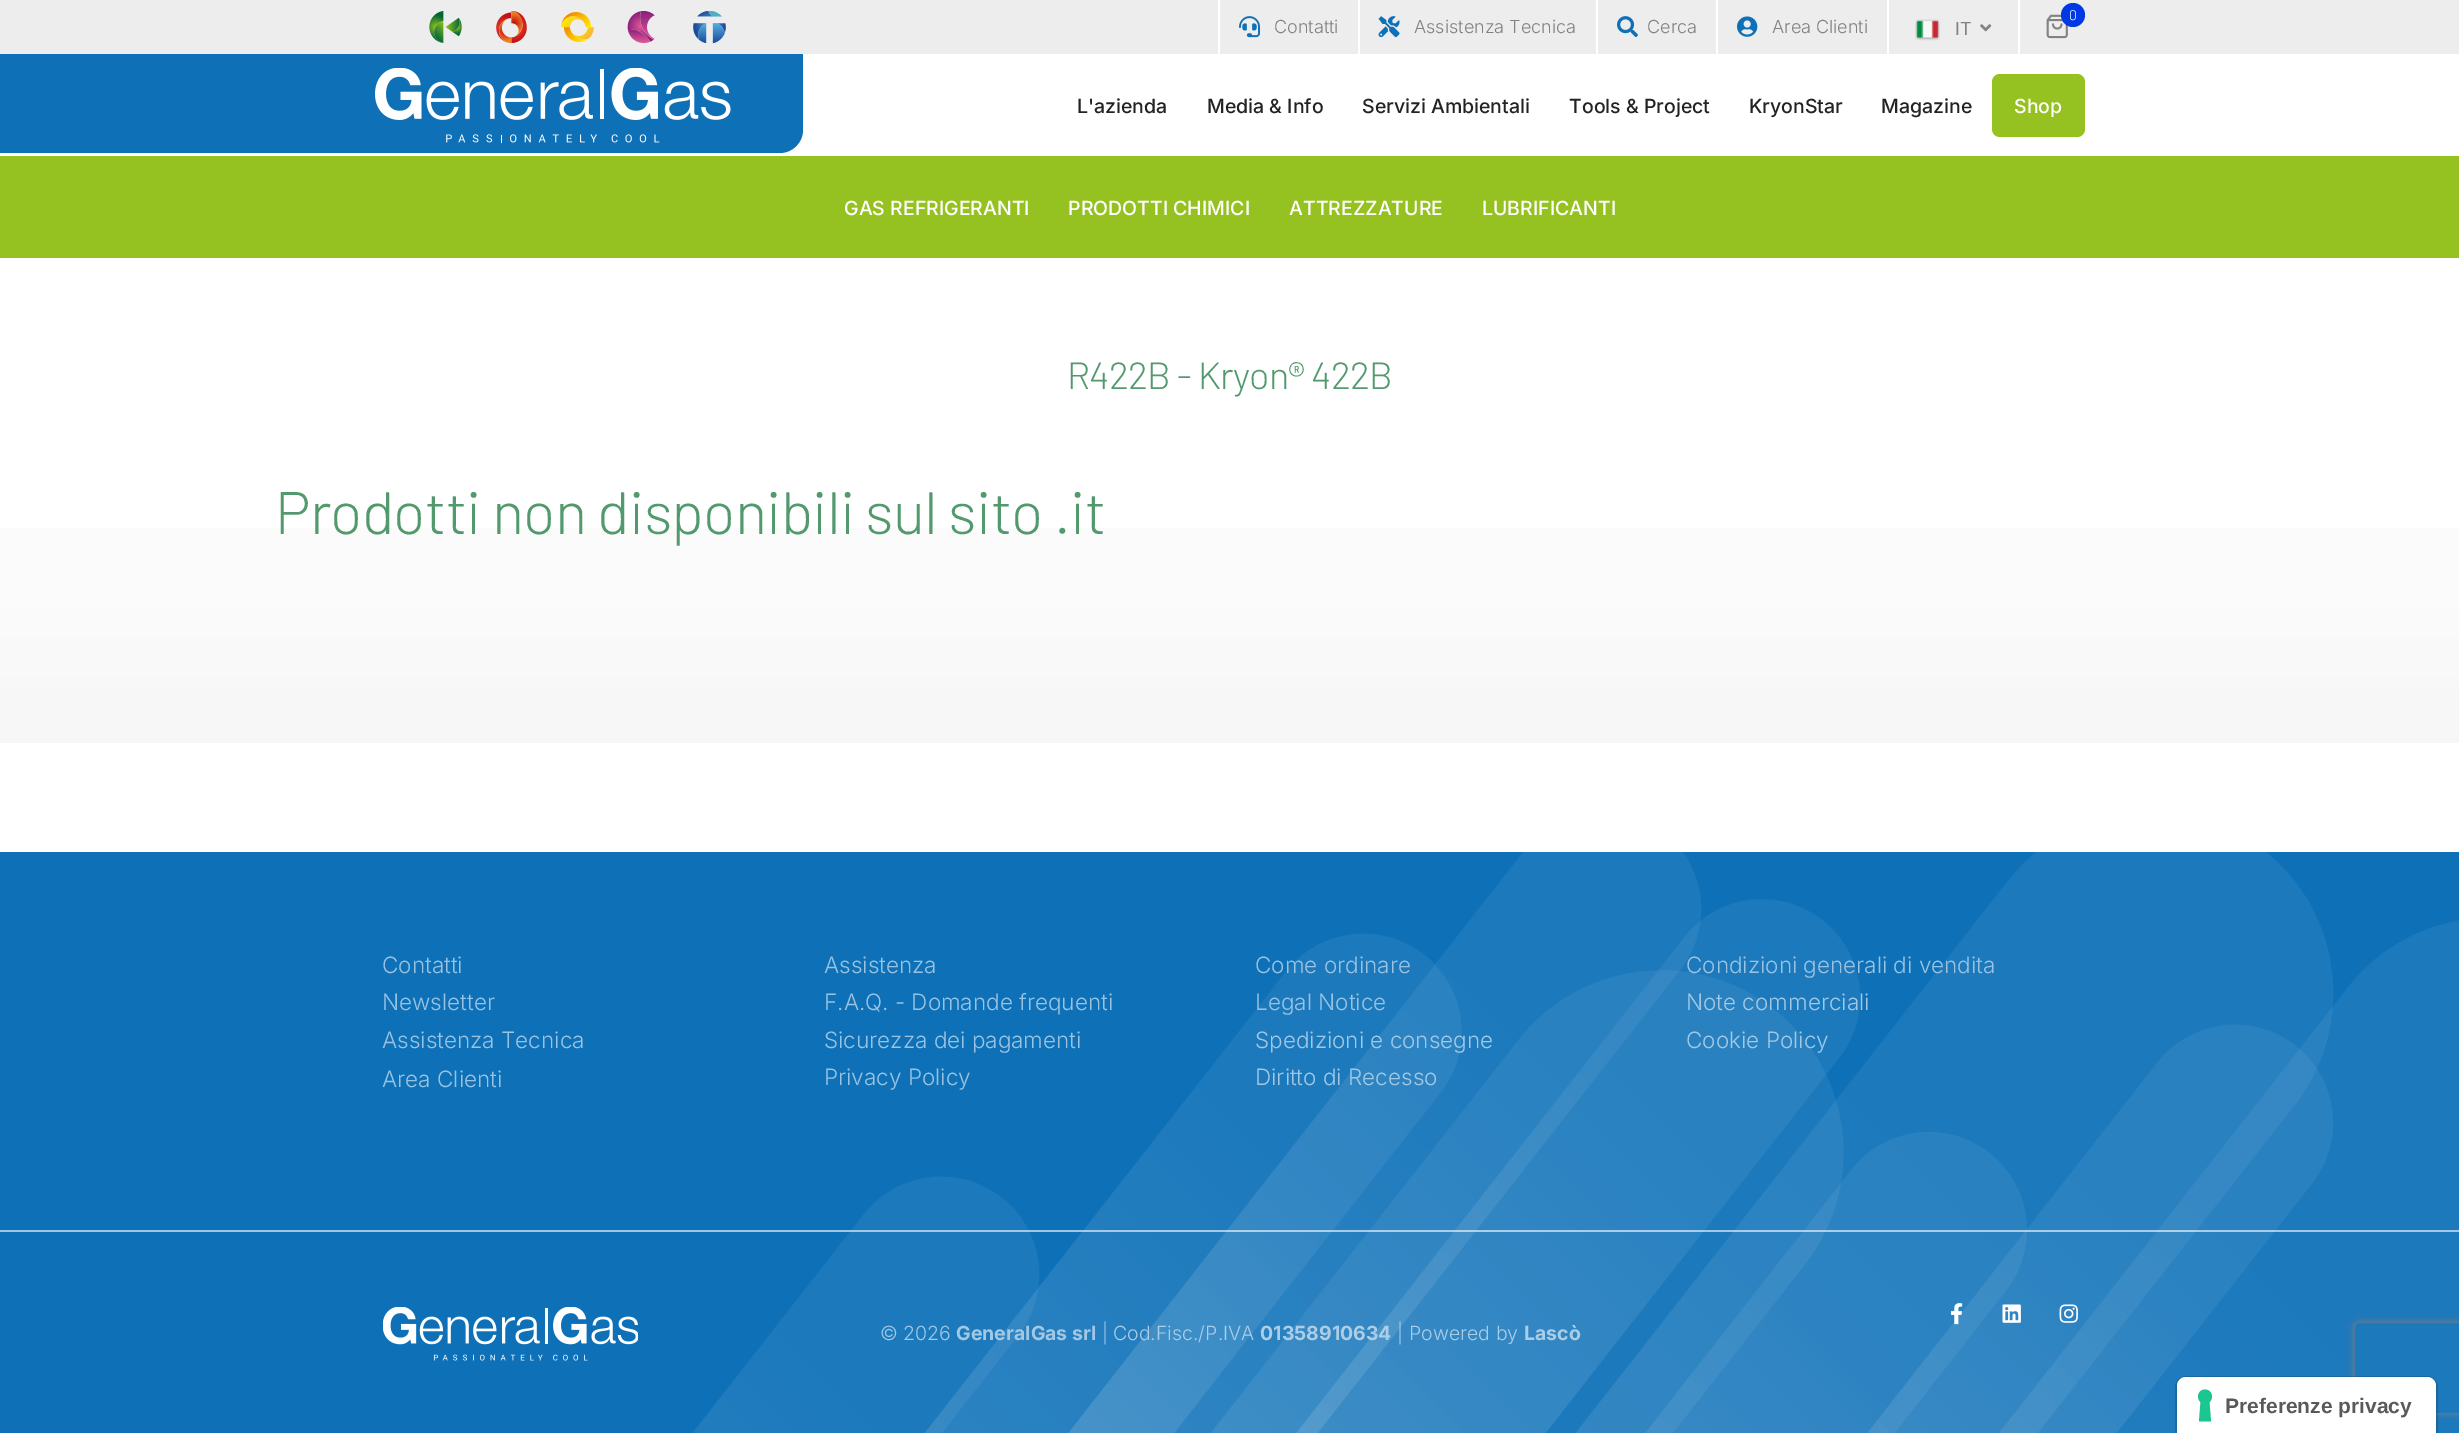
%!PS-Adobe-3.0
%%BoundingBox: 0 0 2459 1433
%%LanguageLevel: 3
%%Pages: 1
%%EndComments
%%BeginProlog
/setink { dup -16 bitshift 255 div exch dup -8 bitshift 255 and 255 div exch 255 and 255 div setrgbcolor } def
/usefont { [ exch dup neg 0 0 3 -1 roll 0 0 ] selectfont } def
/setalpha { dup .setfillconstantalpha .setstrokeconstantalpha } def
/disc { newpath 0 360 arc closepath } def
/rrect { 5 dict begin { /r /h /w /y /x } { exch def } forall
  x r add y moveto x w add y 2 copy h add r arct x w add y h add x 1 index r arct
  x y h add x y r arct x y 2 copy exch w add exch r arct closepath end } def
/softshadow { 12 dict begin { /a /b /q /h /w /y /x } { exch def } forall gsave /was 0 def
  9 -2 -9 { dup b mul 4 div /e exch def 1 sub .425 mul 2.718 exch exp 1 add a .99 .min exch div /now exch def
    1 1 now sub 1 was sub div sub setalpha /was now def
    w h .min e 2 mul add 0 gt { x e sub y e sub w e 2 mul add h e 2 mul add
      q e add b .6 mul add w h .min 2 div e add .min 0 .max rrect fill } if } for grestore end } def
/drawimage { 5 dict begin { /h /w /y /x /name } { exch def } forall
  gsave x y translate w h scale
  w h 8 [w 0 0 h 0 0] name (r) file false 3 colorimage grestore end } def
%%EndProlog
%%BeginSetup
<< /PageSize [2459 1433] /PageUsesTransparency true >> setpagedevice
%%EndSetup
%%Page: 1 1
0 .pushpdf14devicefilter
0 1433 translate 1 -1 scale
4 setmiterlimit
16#FFFFFF setink
0 0 2459 1433 rectfill
16#EDEDED setink
0 0 2459 54 rectfill
(img1.raw) 429 11 33 32 drawimage
(img2.raw) 496 11 31 33 drawimage
(img3.raw) 561 12 33 30 drawimage
(img4.raw) 627 11 28 33 drawimage
(img5.raw) 693 11 33 33 drawimage
(img6.raw) 2046 14 22 25 drawimage
16#0038E3 setink
2073 15 12 disc fill
/Barlow-Light 14 usefont
16#FFFFFF setink
2069 20 moveto (0) show
1358 0 2 54 rectfill
1218 0 2 54 rectfill
(img7.raw) 1239 16 21 22 drawimage
/Inter-Light 18 usefont
16#828282 setink
1274 33 moveto (Contatti) show
16#FFFFFF setink
1596 0 2 54 rectfill
(img8.raw) 1378 16 22 22 drawimage
16#828282 setink
1414 33 moveto (Assistenza Tecnica) show
16#FFFFFF setink
1716 0 2 54 rectfill
(img9.raw) 1617 16 21 22 drawimage
16#828282 setink
1647 33 moveto (Cerca) show
16#FFFFFF setink
1887 0 2 54 rectfill
(img10.raw) 1737 16 21 21 drawimage
16#828282 setink
1772 33 moveto (Area Clienti) show
16#FFFFFF setink
2018 0 2 54 rectfill
(img11.raw) 1915 19 25 22 drawimage
/Inter-Regular 18 usefont
16#828282 setink
1955 35 moveto (IT) show
(img12.raw) 1980 24 12 8 drawimage
16#0E71B8 setink
0 54 moveto 803 54 lineto 803 130 lineto 803 142.5 792.5 153 780 153 curveto 0 153 lineto closepath fill
(img13.raw) 375 68 356 75 drawimage
/Inter-Medium 19.5 usefont
16#232323 setink
[
    [(L'azienda) 1077 113]
    [(Media & Info) 1207 113]
    [(Servizi Ambientali) 1362 113]
    [(Tools & Project) 1569 113]
    [(KryonStar) 1749 113]
    [(Magazine) 1881 113]
] { aload pop moveto show } forall
16#95C121 setink
1992 74 93 63 8 rrect fill
16#FFFFFF setink
2014 113 moveto (Shop) show
16#95C121 setink
0 156 2459 102 rectfill
16#FFFFFF setink
[
    [(GAS REFRIGERANTI) 844 215]
    [(PRODOTTI CHIMICI) 1068 215]
    [(ATTREZZATURE) 1289 215]
    [(LUBRIFICANTI) 1482 215]
] { aload pop moveto show } forall
16#0E71B8 setink
0 852 2459 581 rectfill
(img14.raw) 693 852 1766 581 drawimage
gsave
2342 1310 moveto 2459 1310 lineto 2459 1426 lineto 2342 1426 lineto closepath 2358 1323 moveto 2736 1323 lineto 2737.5 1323 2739 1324.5 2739 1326 curveto 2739 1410 lineto 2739 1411.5 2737.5 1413 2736 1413 curveto 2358 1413 lineto 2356.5 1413 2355 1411.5 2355 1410 curveto 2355 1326 lineto 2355 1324.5 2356.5 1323 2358 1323 curveto closepath eoclip newpath
16#808080 setink
2355 1323 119 90 3 4 1 softshadow
grestore
/Barlow-Light 37.75 usefont
16#52996D setink
1067 389 moveto -0.75 0 (R422B - Kryon® 422B) ashow
gsave 0 528 moveto 2459 528 lineto 2459 743 lineto 0 743 lineto closepath clip newpath
<< /ShadingType 2 /ColorSpace /DeviceRGB /Coords [1230 430 1230 743] /Extend [true true] /Function << /FunctionType 3 /Domain [0 1] /Functions [<< /FunctionType 2 /Domain [0 1] /C0 [1 1 1] /C1 [0.992 0.992 0.992] /N 1 >> << /FunctionType 2 /Domain [0 1] /C0 [0.992 0.992 0.992] /C1 [0.984 0.984 0.984] /N 1 >> << /FunctionType 2 /Domain [0 1] /C0 [0.984 0.984 0.984] /C1 [0.976 0.976 0.976] /N 1 >> << /FunctionType 2 /Domain [0 1] /C0 [0.976 0.976 0.976] /C1 [0.969 0.969 0.969] /N 1 >>] /Bounds [0.25 0.5 0.75] /Encode [0 1 0 1 0 1 0 1] >> >> shfill grestore
/Barlow-Light 59.8 usefont
275 534 moveto -0.75 0 (Prodotti non disponibili sul sito .it) ashow
/Inter-Light 22.5 usefont
16#9AC3E1 setink
[
    [(Contatti) 382 973]
    [(Newsletter) 382 1010]
    [(Assistenza Tecnica) 382 1048]
    [(Area Clienti) 382 1087]
    [(Assistenza) 824 973]
    [(Come ordinare) 1255 973]
    [(Condizioni generali di vendita) 1686 973]
    [(F.A.Q. - Domande frequenti) 824 1010]
    [(Legal Notice) 1255 1010]
] { aload pop moveto show } forall
16#A2C8E4 setink
1686 1010 moveto (Note commerciali) show
16#9AC3E1 setink
824 1048 moveto (Sicurezza dei pagamenti) show
16#A2C8E4 setink
1255 1048 moveto (Spedizioni e consegne) show
1686 1048 moveto (Cookie Policy) show
16#9AC3E1 setink
824 1085 moveto (Privacy Policy) show
16#A2C8E4 setink
1255 1085 moveto (Diritto di Recesso) show
0.6 setalpha
16#FFFFFF setink
0 1230 2459 2 rectfill
1 setalpha
(img15.raw) 383 1307 255 54 drawimage
/Inter-Light 19.5 usefont
16#A2C8E4 setink
880 1340 moveto (© 2026) show
/Inter-Bold 19.5 usefont
956 1340 moveto (GeneralGas srl) show
/Inter-Light 19.5 usefont
1102 1340 moveto (|) show
16#ABCDE6 setink
1113 1340 moveto (Cod.Fisc./P.IVA) show
/Inter-Bold 19.5 usefont
1260 1340 moveto (01358910634) show
/Inter-Light 19.5 usefont
1397 1340 moveto (|) show
1409 1340 moveto (Powered by) show
/Inter-Bold 19.5 usefont
1524 1340 moveto (Lascò) show
(img16.raw) 1950 1303 13 22 drawimage
(img17.raw) 2002 1304 19 19 drawimage
(img18.raw) 2059 1304 19 19 drawimage
0.15 setalpha
16#000000 setink
2 setlinewidth
2186 1377 moveto 2427 1377 lineto 2432.5 1377 2437 1381.5 2437 1387 curveto 2437 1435 lineto 2176 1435 lineto 2176 1387 lineto 2176 1381.5 2180.5 1377 2186 1377 curveto closepath stroke
1 setalpha
16#FFFFFF setink
2186 1377 moveto 2427 1377 lineto 2432 1377 2436 1381 2436 1386 curveto 2436 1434 lineto 2177 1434 lineto 2177 1386 lineto 2177 1381 2181 1377 2186 1377 curveto closepath fill
16#1CC691 setink
2205 1389.5 moveto 2211.5 1389.5 2214.5 1397.5 2209.5 1402 curveto 2211 1421.5 lineto 2199 1421.5 lineto 2200.5 1402 lineto 2195.5 1397.5 2198.5 1389.5 2205 1389.5 curveto closepath eofill
/LiberationSans-Bold 21 usefont
16#595959 setink
2225 1413 moveto (Preferenze privacy) show
.poppdf14devicefilter showpage
%%EOF
